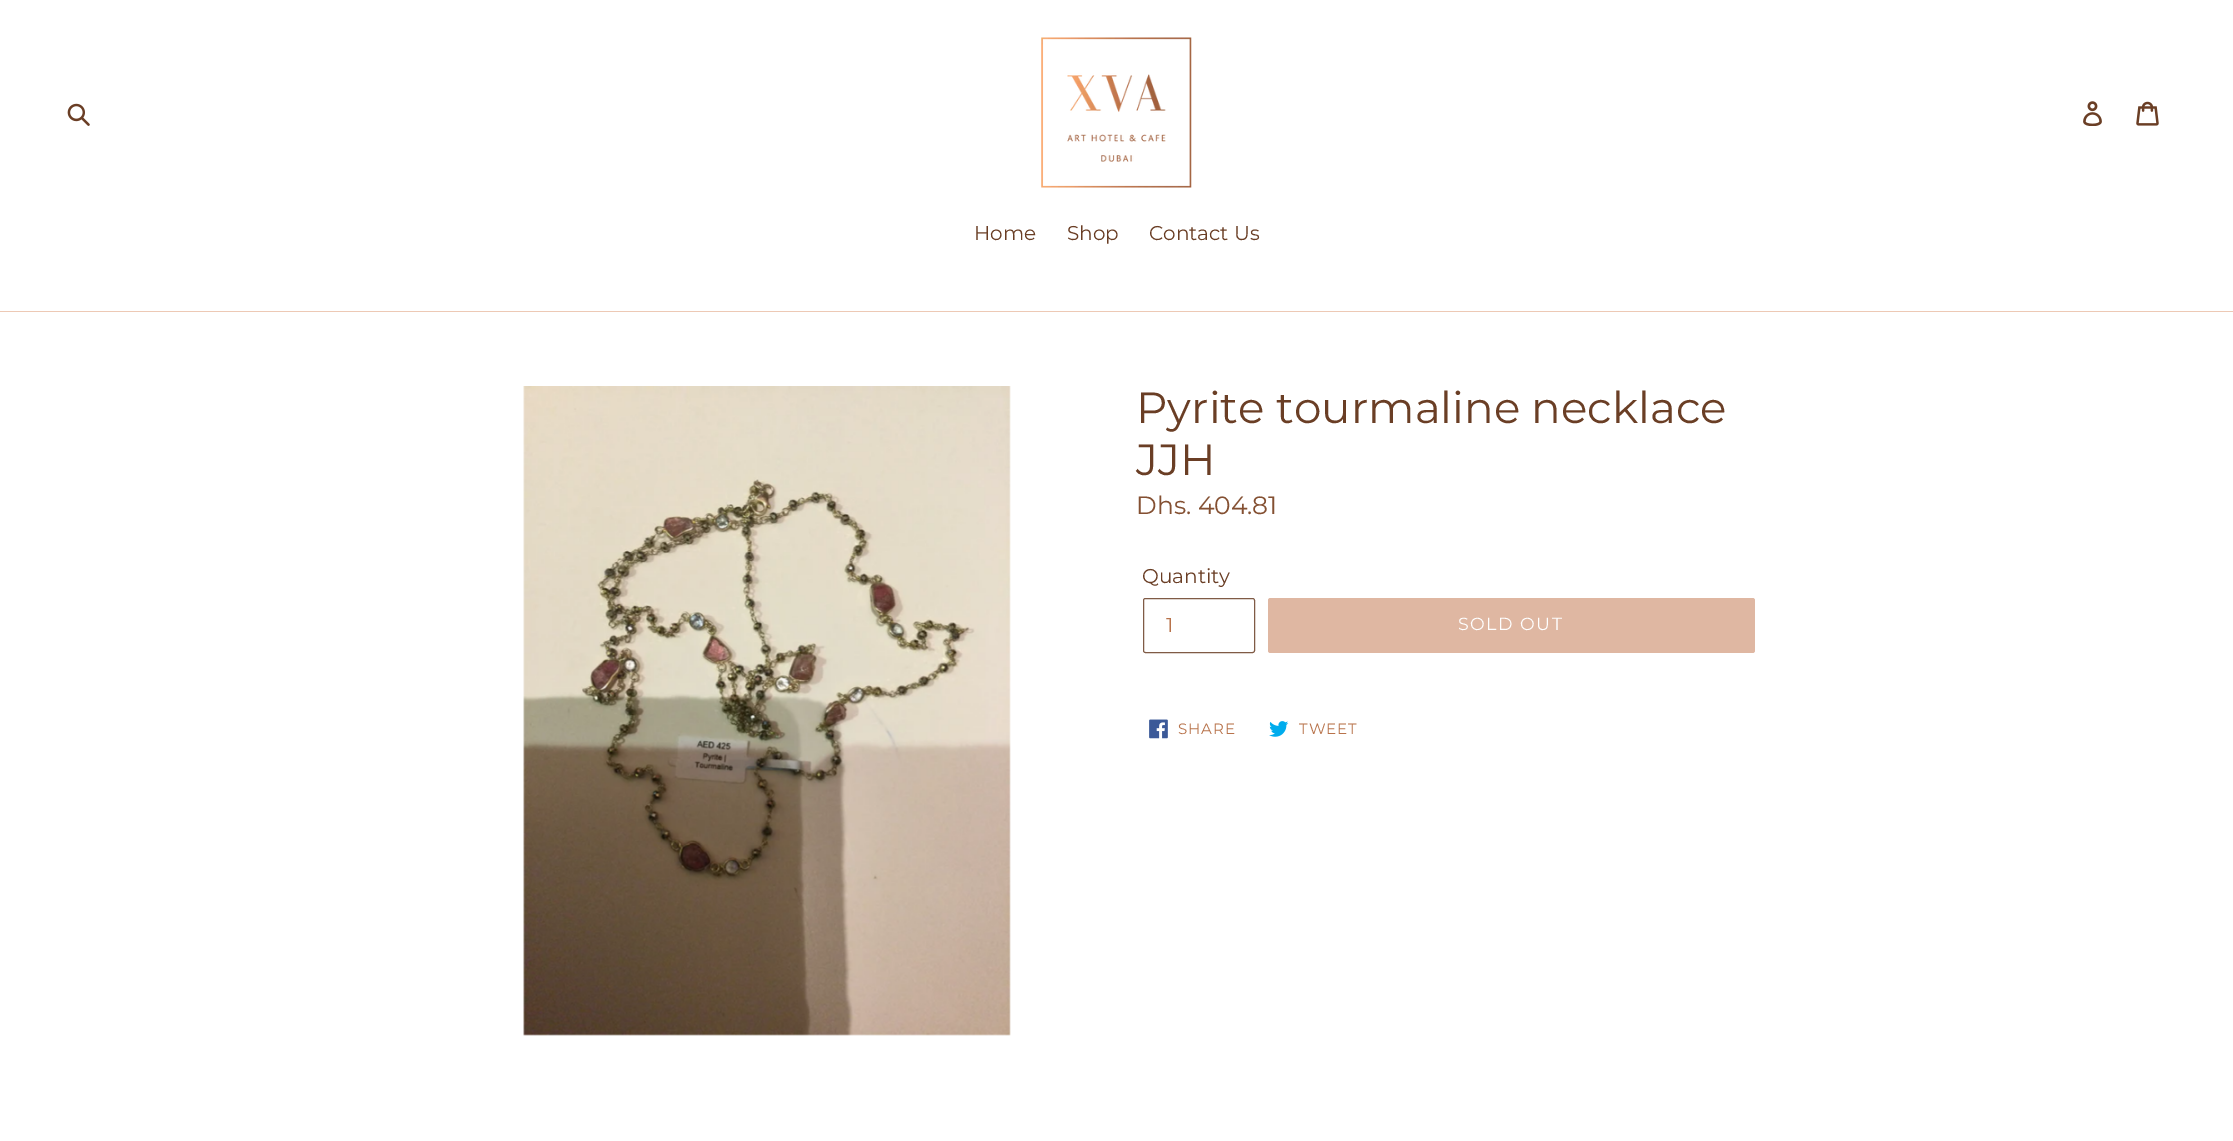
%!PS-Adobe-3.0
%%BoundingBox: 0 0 2233 1141
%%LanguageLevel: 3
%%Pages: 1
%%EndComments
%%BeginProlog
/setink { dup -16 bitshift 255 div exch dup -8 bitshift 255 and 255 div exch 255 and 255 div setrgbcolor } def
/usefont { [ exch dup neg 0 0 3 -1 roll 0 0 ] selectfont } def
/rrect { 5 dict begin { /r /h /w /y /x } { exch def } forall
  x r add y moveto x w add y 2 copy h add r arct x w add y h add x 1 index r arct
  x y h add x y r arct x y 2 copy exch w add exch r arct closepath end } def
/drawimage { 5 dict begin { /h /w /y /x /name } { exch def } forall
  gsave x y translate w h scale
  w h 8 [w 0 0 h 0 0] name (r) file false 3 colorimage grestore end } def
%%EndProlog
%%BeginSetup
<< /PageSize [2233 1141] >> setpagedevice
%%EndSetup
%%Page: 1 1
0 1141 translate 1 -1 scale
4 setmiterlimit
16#FFFFFF setink
0 0 2233 1141 rectfill
(img1.raw) 67 103 23 23 drawimage
(img2.raw) 1041 37 151 151 drawimage
(img3.raw) 2083 101 19 25 drawimage
(img4.raw) 2136 101 23 25 drawimage
16#EDC9B5 setink
0 311 2233 1 rectfill
/Montserrat-Thin 20 usefont
16#6A3E25 setink
[
    [(Home) 974 240]
    [(Shop) 1067 240]
    [(Contact Us) 1149 240]
] { aload pop moveto show } forall
(img5.raw) 523 386 488 650 drawimage
/Montserrat-Thin 43.75 usefont
1136 423 moveto (Pyrite tourmaline necklace) show
1136 475 moveto (JJH) show
/Montserrat-Thin 25 usefont
16#845032 setink
1136 514 moveto (Dhs. 404.81) show
/Montserrat-Thin 20 usefont
16#6A3E25 setink
1142 583 moveto (Quantity) show
16#805B46 setink
1143.5 598.5 111 54 2 rrect stroke
16#B8734B setink
1166 632 moveto (1) show
16#DFB7A2 setink
1268 598 487 55 2.5 rrect fill
/Montserrat-Thin 17.5 usefont
16#FFFFFF setink
1458 630 moveto 1.5 0 (SOLD OUT) ashow
(img6.raw) 1149 719 19 20 drawimage
/Montserrat-Thin 15 usefont
16#B8734B setink
1178 734 moveto 1 0 (SHARE) ashow
(img7.raw) 1269 721 20 16 drawimage
1299 734 moveto 1 0 (TWEET) ashow
showpage
%%EOF
